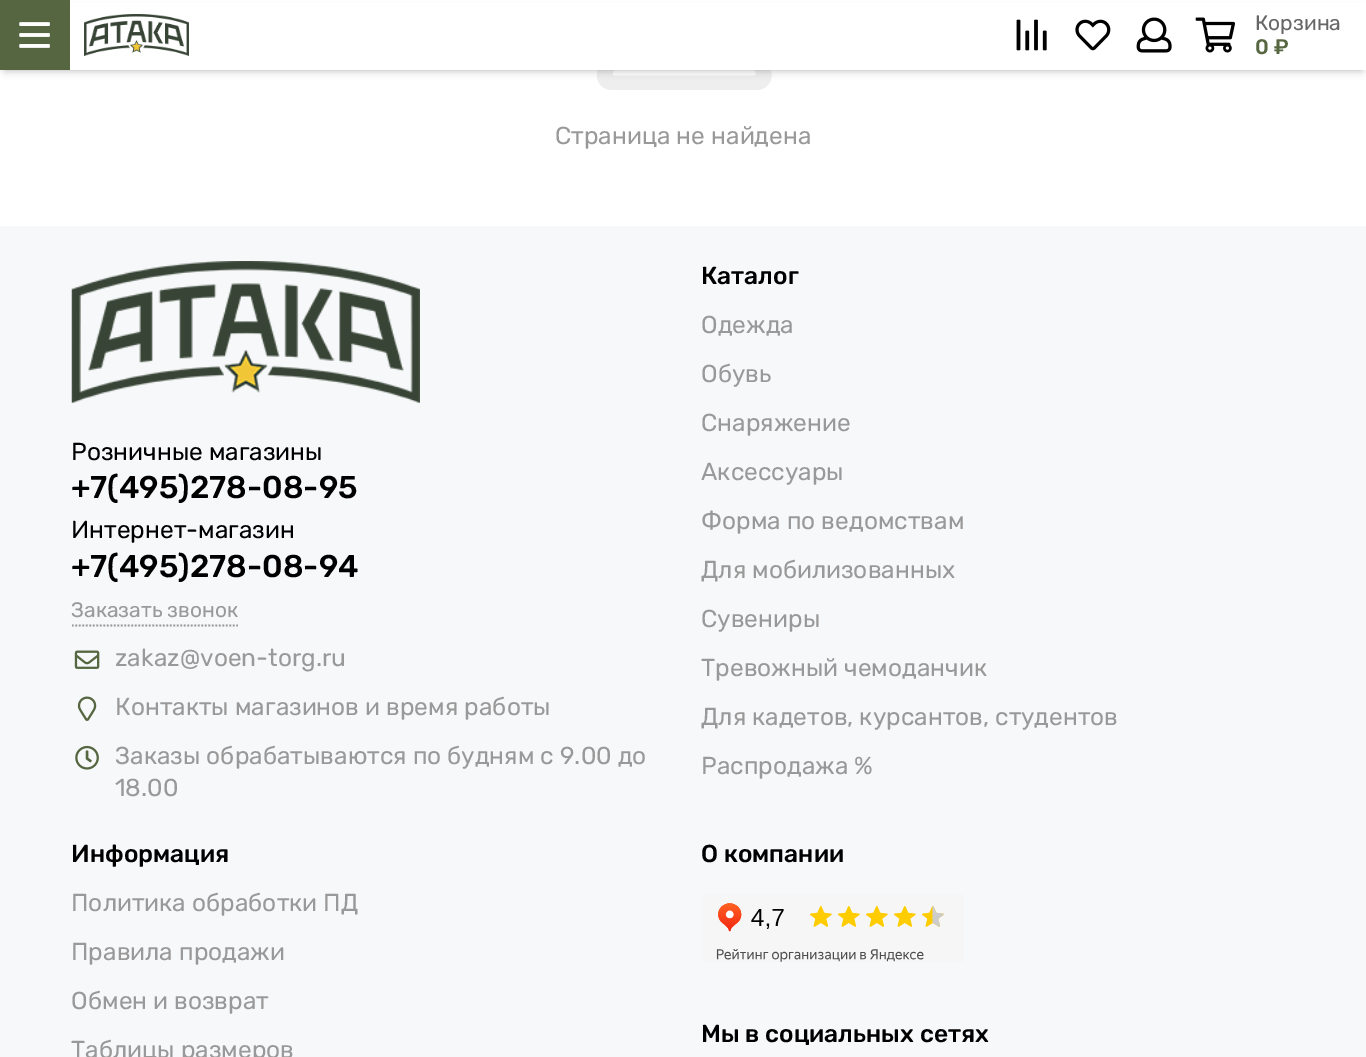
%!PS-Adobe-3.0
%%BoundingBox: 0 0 1366 1057
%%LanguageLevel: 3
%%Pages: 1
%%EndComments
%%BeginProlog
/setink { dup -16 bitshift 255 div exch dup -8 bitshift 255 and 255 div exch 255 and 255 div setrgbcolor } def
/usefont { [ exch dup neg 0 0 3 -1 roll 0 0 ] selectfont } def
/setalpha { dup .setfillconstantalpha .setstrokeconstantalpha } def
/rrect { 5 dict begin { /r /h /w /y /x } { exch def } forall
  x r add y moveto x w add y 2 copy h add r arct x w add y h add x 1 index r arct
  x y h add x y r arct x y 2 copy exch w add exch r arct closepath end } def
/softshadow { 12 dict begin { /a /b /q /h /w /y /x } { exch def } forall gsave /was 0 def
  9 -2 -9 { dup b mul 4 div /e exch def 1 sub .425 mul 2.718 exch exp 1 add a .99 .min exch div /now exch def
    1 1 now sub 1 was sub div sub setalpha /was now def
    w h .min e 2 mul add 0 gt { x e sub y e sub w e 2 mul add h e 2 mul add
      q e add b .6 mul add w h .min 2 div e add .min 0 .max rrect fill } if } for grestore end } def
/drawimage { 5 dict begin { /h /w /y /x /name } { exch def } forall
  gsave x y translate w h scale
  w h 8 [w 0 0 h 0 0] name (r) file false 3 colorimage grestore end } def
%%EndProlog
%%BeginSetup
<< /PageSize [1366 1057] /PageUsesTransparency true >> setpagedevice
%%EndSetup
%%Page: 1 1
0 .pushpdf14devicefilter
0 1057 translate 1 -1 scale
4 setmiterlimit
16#FFFFFF setink
0 0 1366 1057 rectfill
(img7.raw) 596 70 176 20 drawimage
16#000000 setink
5 11 1357 59 0 4.5 0.3 softshadow
16#FFFFFF setink
70 3 1296 67 rectfill
16#556640 setink
0 0 70 70 rectfill
(img1.raw) 19 22 31 26 drawimage
(img2.raw) 84 14 105 42 drawimage
(img3.raw) 1016 19 31 32 drawimage
(img4.raw) 1075 19 36 32 drawimage
(img5.raw) 1136 17 36 36 drawimage
(img6.raw) 1195 17 40 36 drawimage
/Rubik-Regular 21 usefont
16#666666 setink
1255 30 moveto (Корзина) show
/Rubik-Medium 21 usefont
16#556640 setink
1255 54 moveto (0 ₽) show
/Rubik-Regular 24.5 usefont
16#999999 setink
555 144 moveto (Страница не найдена) show
16#F7F8FA setink
0 226 1366 831 rectfill
(img8.raw) 71 261 349 142 drawimage
16#000000 setink
71 460 moveto (Розничные магазины) show
/Rubik-Medium 31.5 usefont
71 498 moveto (+7\(495\)278-08-95) show
/Rubik-Regular 24.5 usefont
71 538 moveto (Интернет-магазин) show
/Rubik-Medium 31.5 usefont
71 577 moveto (+7\(495\)278-08-94) show
16#999999 setink
1.8 setlinewidth
[1.75 1.75] 0 setdash
72 625.5 moveto 238 625.5 lineto stroke
/Rubik-Regular 21 usefont
71 617 moveto (Заказать звонок) show
(img9.raw) 74 650 26 19 drawimage
/Rubik-Regular 24.5 usefont
115 666 moveto (zakaz@voen-torg.ru) show
(img10.raw) 77 696 20 25 drawimage
115 715 moveto (Контакты магазинов и время работы) show
(img11.raw) 75 745 24 25 drawimage
115 764 moveto (Заказы обрабатываются по будням с 9.00 до) show
115 796 moveto (18.00) show
/Rubik-Medium 24.5 usefont
16#000000 setink
701 284 moveto (Каталог) show
/Rubik-Regular 24.5 usefont
16#999999 setink
[
    [(Одежда) 701 333]
    [(Обувь) 701 382]
    [(Снаряжение) 701 431]
    [(Аксессуары) 701 480]
    [(Форма по ведомствам) 701 529]
    [(Для мобилизованных) 701 578]
    [(Сувениры) 701 627]
    [(Тревожный чемоданчик) 701 676]
    [(Для кадетов, курсантов, студентов) 701 725]
    [(Распродажа %) 701 774]
] { aload pop moveto show } forall
/Rubik-Medium 24.5 usefont
16#000000 setink
71 862 moveto (Информация) show
/Rubik-Regular 24.5 usefont
16#999999 setink
[
    [(Политика обработки ПД) 71 911]
    [(Правила продажи) 71 960]
    [(Обмен и возврат) 71 1009]
    [(Таблицы размеров) 71 1058]
] { aload pop moveto show } forall
/Rubik-Medium 24.5 usefont
16#000000 setink
701 862 moveto (О компании) show
(img12.raw) 702 894 262 68 drawimage
701 1042 moveto (Мы в социальных сетях) show
.poppdf14devicefilter showpage
%%EOF
